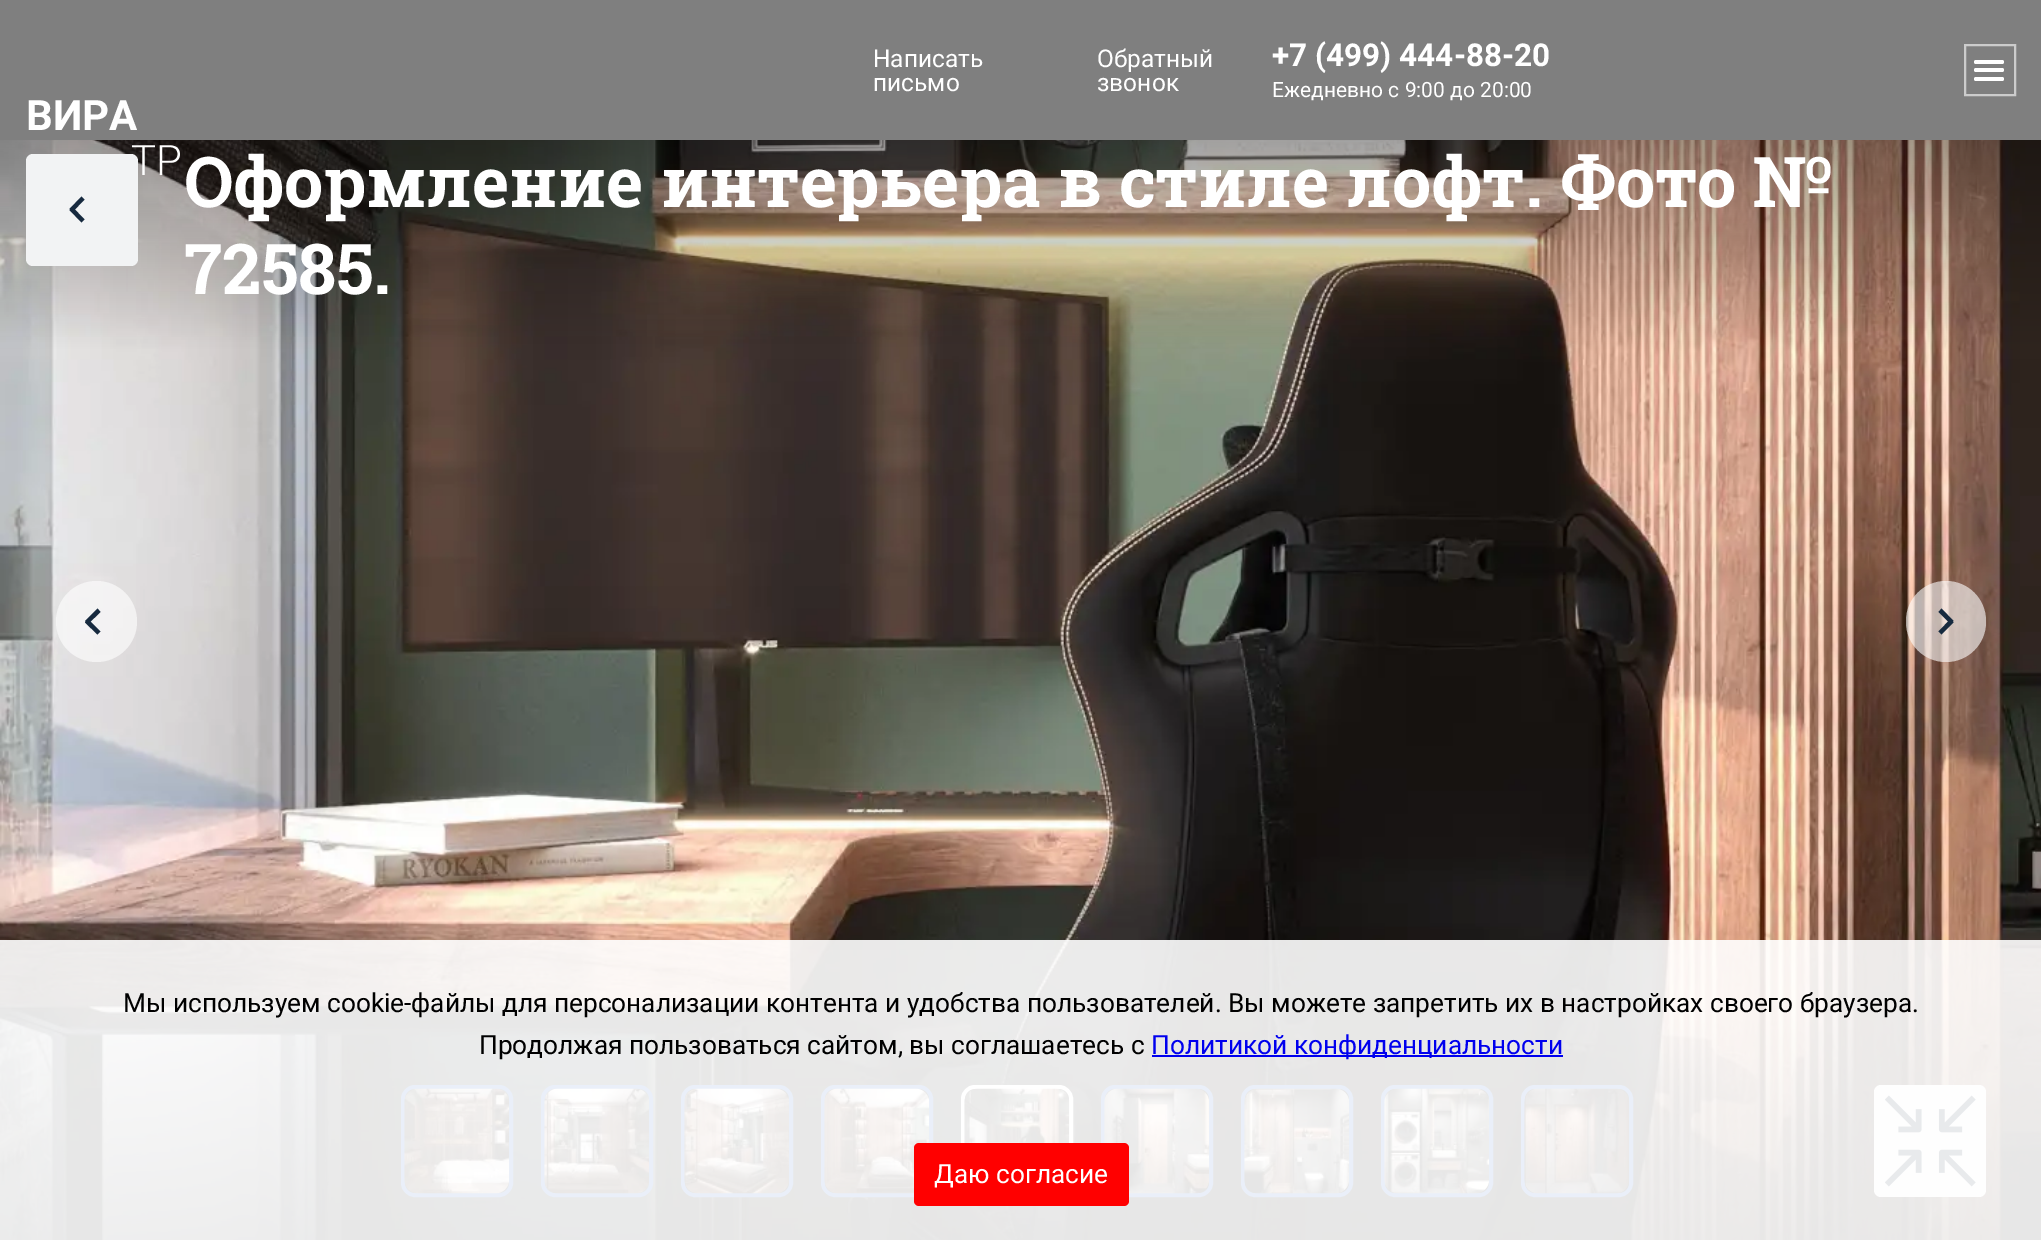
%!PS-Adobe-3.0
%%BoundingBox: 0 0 2041 1240
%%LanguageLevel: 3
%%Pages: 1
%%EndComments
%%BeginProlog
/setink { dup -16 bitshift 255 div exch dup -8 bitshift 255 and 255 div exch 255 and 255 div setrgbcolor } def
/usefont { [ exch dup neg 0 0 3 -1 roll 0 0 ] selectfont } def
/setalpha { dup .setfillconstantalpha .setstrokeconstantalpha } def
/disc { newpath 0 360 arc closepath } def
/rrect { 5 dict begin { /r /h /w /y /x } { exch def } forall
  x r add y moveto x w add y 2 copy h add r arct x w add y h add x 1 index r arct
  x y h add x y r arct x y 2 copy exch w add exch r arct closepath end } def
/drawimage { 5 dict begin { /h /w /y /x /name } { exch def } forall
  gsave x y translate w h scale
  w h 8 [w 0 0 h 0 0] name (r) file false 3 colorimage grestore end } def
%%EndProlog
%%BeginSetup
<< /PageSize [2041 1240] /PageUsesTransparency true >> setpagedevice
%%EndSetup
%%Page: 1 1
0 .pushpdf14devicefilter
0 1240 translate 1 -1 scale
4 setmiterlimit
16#FFFFFF setink
0 0 2041 1240 rectfill
16#7F7F7F setink
0 0 2041 140 rectfill
/Roboto-Regular 24.5 usefont
16#FFFFFF setink
[
    [(Написать) 873 67]
    [(письмо) 873 91]
    [(Обратный) 1097 67]
    [(звонок) 1097 91]
] { aload pop moveto show } forall
/Roboto-Bold 31.5 usefont
1272 66 moveto (+7 \(499\) 444-88-20) show
/Roboto-Regular 21 usefont
1272 97 moveto (Ежедневно с 9:00 до 20:00) show
16#CCCCCC setink
2 setlinewidth
1965 45 50 50 rectstroke
16#FFFFFF setink
1974 60 30 4 2 rrect fill
1974 68 30 4 2 rrect fill
1974 77 30 4 2 rrect fill
/Roboto-Bold 42 usefont
26 130 moveto (ВИРА) show
(img1.raw) 0 140 2041 1100 drawimage
16#F2F3F4 setink
26 154 112 112 7 rrect fill
/Roboto-Light 42 usefont
16#FFFFFF setink
131 175 moveto (ТР) show
16#172A3F setink
72.5 207 moveto 84.5 219.5 lineto 81.5 222.5 lineto 69.5 210 lineto closepath fill
69.5 209 moveto 81.5 196.5 lineto 84.5 199.5 lineto 72.5 212 lineto closepath fill
/RobotoSlab-Bold 70 usefont
16#FFFFFF setink
184 207 moveto (Оформление интерьера в стиле лофт. Фото №) show
184 294 moveto (72585.) show
0.6 setalpha
96.5 621.5 40.5 disc fill
1 setalpha
16#172A3F setink
88 619 moveto 100.5 631.5 lineto 97.5 634.5 lineto 85 622.5 lineto closepath fill
85 621 moveto 97.5 608.5 lineto 100.5 612 lineto 88 624 lineto closepath fill
0.6 setalpha
16#FFFFFF setink
1906 581 80 81 40 rrect fill
1 setalpha
16#172A3F setink
1938.5 631.5 moveto 1950.5 619 lineto 1953.5 622.5 lineto 1941.5 634.5 lineto closepath fill
1941.5 608.5 moveto 1953.5 621 lineto 1950.5 624 lineto 1938.5 612 lineto closepath fill
16#2660BD setink
4 setlinewidth
403 1087 108 108 12 rrect stroke
(img2.raw) 404 1088 106 106 drawimage
543 1087 108 108 12 rrect stroke
(img3.raw) 544 1088 106 106 drawimage
683 1087 108 108 12 rrect stroke
(img4.raw) 684 1088 106 106 drawimage
823 1087 108 108 12 rrect stroke
(img5.raw) 824 1088 106 106 drawimage
16#FFFFFF setink
963 1087 108 108 12 rrect stroke
(img6.raw) 964 1088 106 55 drawimage
16#2660BD setink
1103 1087 108 108 12 rrect stroke
(img7.raw) 1104 1088 106 106 drawimage
1243 1087 108 108 12 rrect stroke
(img8.raw) 1244 1088 106 106 drawimage
1383 1087 108 108 12 rrect stroke
(img9.raw) 1384 1088 106 106 drawimage
1523 1087 108 108 12 rrect stroke
(img10.raw) 1524 1088 106 106 drawimage
16#F2F3F4 setink
1874 1085 112 112 7 rrect fill
(img11.raw) 1885 1095 91 92 drawimage
0.9 setalpha
16#FFFFFF setink
0 940 2041 300 rectfill
/Roboto-Regular 26.25 usefont
1 setalpha
16#000000 setink
123 1012 moveto (Мы используем cookie-файлы для персонализации контента и удобства пользователей. Вы можете запретить их в настройках своего браузера.) show
479 1054 moveto (Продолжая пользоваться сайтом, вы соглашаетесь с) show
16#0000EE setink
1152 1055 411 2 rectfill
1151 1054 moveto (Политикой конфиденциальности) show
16#FF0000 setink
914 1143 215 63 5 rrect fill
16#FFFFFF setink
934 1183 moveto (Даю согласие) show
.poppdf14devicefilter showpage
%%EOF
